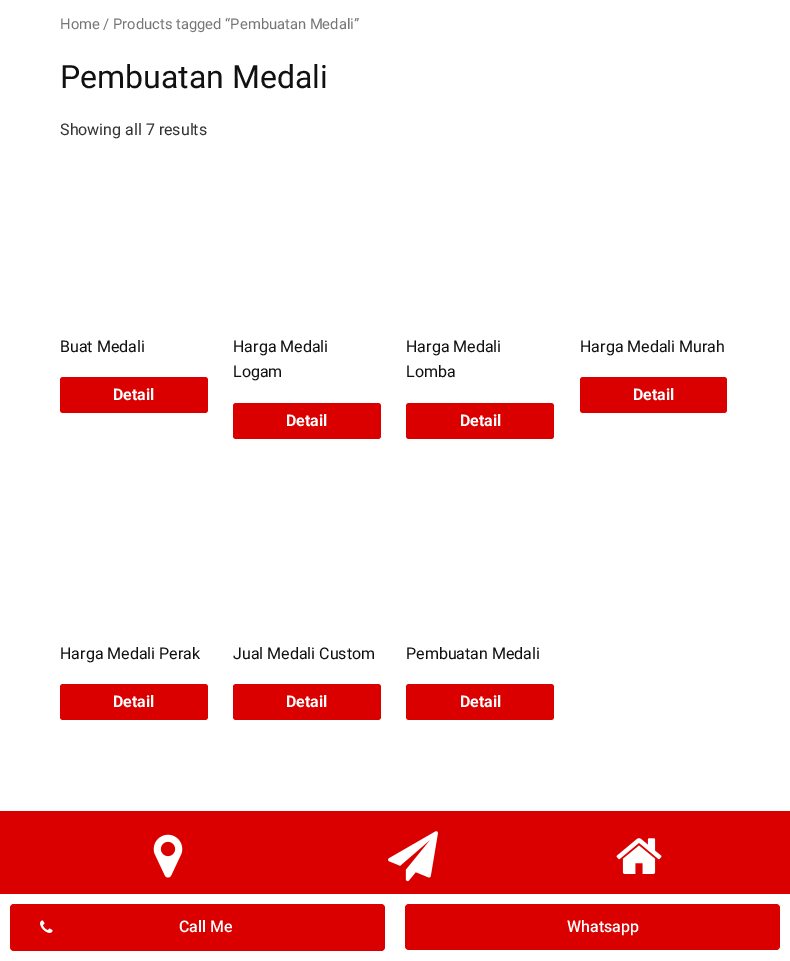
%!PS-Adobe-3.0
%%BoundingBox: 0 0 790 961
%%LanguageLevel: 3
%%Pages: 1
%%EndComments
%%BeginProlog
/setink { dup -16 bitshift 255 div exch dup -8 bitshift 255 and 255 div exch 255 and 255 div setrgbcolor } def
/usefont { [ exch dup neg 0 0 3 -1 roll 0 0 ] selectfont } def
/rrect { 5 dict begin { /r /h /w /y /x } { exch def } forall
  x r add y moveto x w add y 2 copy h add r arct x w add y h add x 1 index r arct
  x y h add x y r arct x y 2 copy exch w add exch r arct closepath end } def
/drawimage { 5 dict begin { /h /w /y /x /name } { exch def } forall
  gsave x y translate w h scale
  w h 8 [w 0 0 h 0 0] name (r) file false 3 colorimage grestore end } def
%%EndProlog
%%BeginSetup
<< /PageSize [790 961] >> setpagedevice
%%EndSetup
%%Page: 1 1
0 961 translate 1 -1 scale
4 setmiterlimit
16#FFFFFF setink
0 0 790 961 rectfill
/Roboto-Regular 14.75 usefont
16#767676 setink
60 29 moveto (Home / Products tagged “Pembuatan Medali”) show
/Roboto-Regular 32 usefont
16#111111 setink
60 88 moveto (Pembuatan Medali) show
/Roboto-Regular 16 usefont
16#333333 setink
60 135 moveto (Showing all 7 results) show
16#111111 setink
60 352 moveto (Buat Medali) show
16#DB0000 setink
60 377 148 36 3 rrect fill
/Roboto-Bold 16 usefont
16#FFFFFF setink
113 400 moveto (Detail) show
/Roboto-Regular 16 usefont
16#111111 setink
233 352 moveto (Harga Medali) show
233 377 moveto (Logam) show
16#DB0000 setink
233 403 148 36 3 rrect fill
/Roboto-Bold 16 usefont
16#FFFFFF setink
286 426 moveto (Detail) show
/Roboto-Regular 16 usefont
16#111111 setink
406 352 moveto (Harga Medali) show
406 377 moveto (Lomba) show
16#DB0000 setink
406 403 148 36 3 rrect fill
/Roboto-Bold 16 usefont
16#FFFFFF setink
460 426 moveto (Detail) show
/Roboto-Regular 16 usefont
16#111111 setink
580 352 moveto (Harga Medali Murah) show
16#DB0000 setink
580 377 147 36 3 rrect fill
/Roboto-Bold 16 usefont
16#FFFFFF setink
633 400 moveto (Detail) show
/Roboto-Regular 16 usefont
16#111111 setink
60 659 moveto (Harga Medali Perak) show
16#DB0000 setink
60 684 148 36 3 rrect fill
/Roboto-Bold 16 usefont
16#FFFFFF setink
113 707 moveto (Detail) show
/Roboto-Regular 16 usefont
16#111111 setink
233 659 moveto (Jual Medali Custom) show
16#DB0000 setink
233 684 148 36 3 rrect fill
/Roboto-Bold 16 usefont
16#FFFFFF setink
286 707 moveto (Detail) show
/Roboto-Regular 16 usefont
16#111111 setink
406 659 moveto (Pembuatan Medali) show
16#DB0000 setink
406 684 148 36 3 rrect fill
/Roboto-Bold 16 usefont
16#FFFFFF setink
460 707 moveto (Detail) show
16#DB0000 setink
0 811 790 83 rectfill
(img1.raw) 153 834 30 44 drawimage
(img2.raw) 388 831 50 51 drawimage
(img3.raw) 616 838 46 36 drawimage
10 904 375 47 4 rrect fill
(img4.raw) 40 920 13 13 drawimage
/Roboto-Medium 16 usefont
16#FFFFFF setink
179 932 moveto (Call Me) show
16#DB0000 setink
405 904 375 46 4 rrect fill
16#FFFFFF setink
567 932 moveto (Whatsapp) show
showpage
%%EOF
